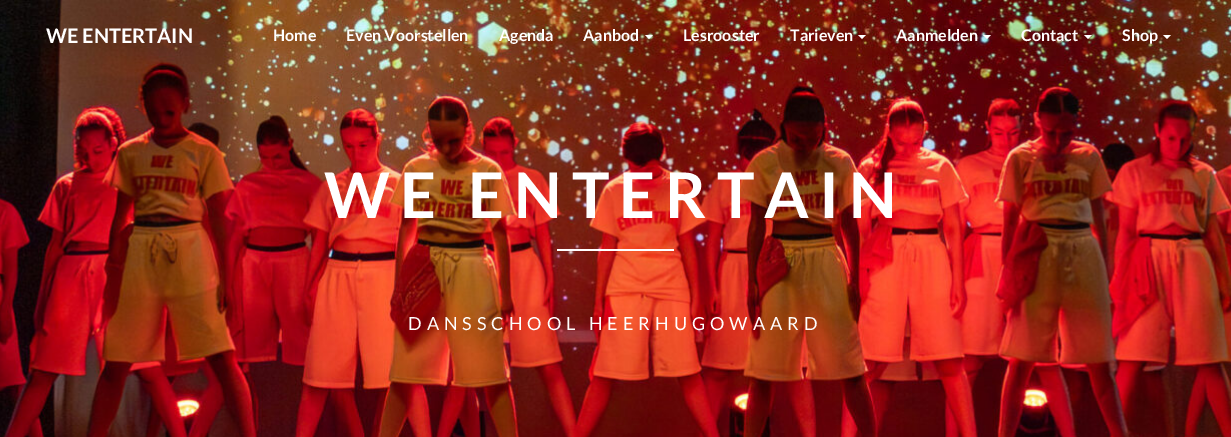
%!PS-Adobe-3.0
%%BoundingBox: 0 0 1231 437
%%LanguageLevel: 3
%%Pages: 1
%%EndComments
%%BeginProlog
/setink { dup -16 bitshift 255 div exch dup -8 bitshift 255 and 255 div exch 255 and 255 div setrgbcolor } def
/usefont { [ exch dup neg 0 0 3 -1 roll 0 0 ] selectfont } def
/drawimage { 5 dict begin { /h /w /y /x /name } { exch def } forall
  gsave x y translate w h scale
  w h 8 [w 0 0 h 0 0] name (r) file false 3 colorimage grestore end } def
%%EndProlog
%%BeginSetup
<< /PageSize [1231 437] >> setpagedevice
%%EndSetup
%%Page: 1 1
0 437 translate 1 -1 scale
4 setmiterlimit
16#FFFFFF setink
0 0 1231 437 rectfill
(img1.raw) 0 0 1231 437 drawimage
/Lato-Bold 20 usefont
46 43 moveto (WE ENTERTAIN) show
/Lato-Bold 16 usefont
[
    [(Home) 273 41]
    [(Even Voorstellen) 346 41]
    [(Agenda) 499 41]
    [(Aanbod) 583 41]
] { aload pop moveto show } forall
645 35 moveto 653 35 lineto 649 39 lineto closepath fill
683 41 moveto (Lesrooster) show
790 41 moveto (Tarieven) show
858 35 moveto 866 35 lineto 862 39 lineto closepath fill
896 41 moveto (Aanmelden) show
983 35 moveto 991 35 lineto 987 39 lineto closepath fill
1021 41 moveto (Contact) show
1084 35 moveto 1092 35 lineto 1088 39 lineto closepath fill
1122 41 moveto (Shop) show
1163 35 moveto 1171 35 lineto 1167 39 lineto closepath fill
/Lato-Bold 63 usefont
324 218 moveto 10 0 (WE ENTERTAIN) ashow
557 249 117 2 rectfill
/Lato-Regular 18 usefont
408 330 moveto 5 0 (DANSSCHOOL HEERHUGOWAARD) ashow
showpage
%%EOF
